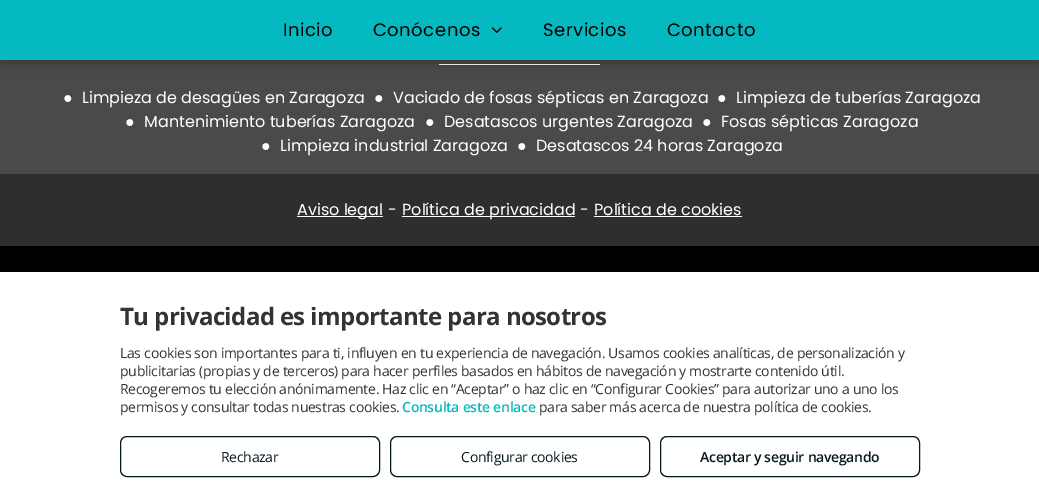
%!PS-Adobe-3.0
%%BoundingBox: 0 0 1039 497
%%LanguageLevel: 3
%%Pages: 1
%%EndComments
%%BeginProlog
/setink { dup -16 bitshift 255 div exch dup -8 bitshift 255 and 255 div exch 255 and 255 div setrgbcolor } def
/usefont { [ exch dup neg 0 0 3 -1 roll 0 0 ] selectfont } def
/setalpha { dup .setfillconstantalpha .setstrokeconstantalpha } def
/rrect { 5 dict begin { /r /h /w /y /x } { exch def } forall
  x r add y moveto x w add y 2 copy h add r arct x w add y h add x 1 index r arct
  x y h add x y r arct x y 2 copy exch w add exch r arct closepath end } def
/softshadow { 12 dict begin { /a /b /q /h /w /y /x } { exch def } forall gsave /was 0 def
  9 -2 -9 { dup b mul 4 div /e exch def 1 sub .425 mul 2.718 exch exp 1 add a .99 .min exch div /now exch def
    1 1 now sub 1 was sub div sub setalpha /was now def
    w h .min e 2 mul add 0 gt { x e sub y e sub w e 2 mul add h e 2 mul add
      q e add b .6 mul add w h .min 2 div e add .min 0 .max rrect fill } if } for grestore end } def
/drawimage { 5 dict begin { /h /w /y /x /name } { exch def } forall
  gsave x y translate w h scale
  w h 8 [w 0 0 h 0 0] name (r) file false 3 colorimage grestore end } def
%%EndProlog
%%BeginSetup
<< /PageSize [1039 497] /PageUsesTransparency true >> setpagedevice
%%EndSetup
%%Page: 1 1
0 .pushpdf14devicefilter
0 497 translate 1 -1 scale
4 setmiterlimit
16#4A4A4A setink
0 0 1039 497 rectfill
16#FFFFFF setink
439 64 161 1 rectfill
16#000000 setink
0 3 1039 60 0 5.5 0.25 softshadow
16#04BAC0 setink
0 0 1039 60 rectfill
/Poppins-Regular 18 usefont
16#000000 setink
283 36 moveto 0.5 0 (Inicio) ashow
373 36 moveto 0.5 0 (Conócenos) ashow
(img1.raw) 491 27 11 6 drawimage
543 36 moveto 0.5 0 (Servicios) ashow
667 36 moveto 0.5 0 (Contacto) ashow
/LiberationSerif-Regular 16 usefont
16#FFFFFF setink
63 103 moveto (●) show
/Poppins-Regular 16 usefont
82 103 moveto (Limpieza de desagües en Zaragoza) show
/LiberationSerif-Regular 16 usefont
374 103 moveto (●) show
/Poppins-Regular 16 usefont
393 103 moveto (Vaciado de fosas sépticas en Zaragoza) show
/LiberationSerif-Regular 16 usefont
717 103 moveto (●) show
/Poppins-Regular 16 usefont
736 103 moveto (Limpieza de tuberías Zaragoza) show
/LiberationSerif-Regular 16 usefont
125 127 moveto (●) show
/Poppins-Regular 16 usefont
144 127 moveto (Mantenimiento tuberías Zaragoza) show
/LiberationSerif-Regular 16 usefont
425 127 moveto (●) show
/Poppins-Regular 16 usefont
444 127 moveto (Desatascos urgentes Zaragoza) show
/LiberationSerif-Regular 16 usefont
702 127 moveto (●) show
/Poppins-Regular 16 usefont
721 127 moveto (Fosas sépticas Zaragoza) show
/LiberationSerif-Regular 16 usefont
261 151 moveto (●) show
/Poppins-Regular 16 usefont
280 151 moveto (Limpieza industrial Zaragoza) show
/LiberationSerif-Regular 16 usefont
517 151 moveto (●) show
/Poppins-Regular 16 usefont
536 151 moveto (Desatascos 24 horas Zaragoza) show
16#2E2E2E setink
0 174 1039 72 rectfill
16#FFFFFF setink
297 216 86 1 rectfill
297 215 moveto (Aviso legal) show
388 215 moveto (-) show
402 216 173 1 rectfill
[
    [(Política de privacidad) 402 215]
    [(-) 580 215]
    [(Política de cookies) 594 215]
] { aload pop moveto show } forall
[
    [594 216 148 1 16#FFFFFF]
    [0 246 1039 26 16#000000]
    [0 272 1039 225 16#FFFFFF]
] { aload pop setink rectfill } forall
/OpenSans-Bold 24 usefont
16#333333 setink
120 325 moveto -0.6 0 (Tu privacidad es importante para nosotros) ashow
/OpenSans-Regular 14 usefont
120 358 moveto -0.3 0 (Las cookies son importantes para ti, influyen en tu experiencia de navegación. Usamos cookies analíticas, de personalización y) ashow
120 376 moveto -0.3 0 (publicitarias \(propias y de terceros\) para hacer perfiles basados en hábitos de navegación y mostrarte contenido útil.) ashow
120 394 moveto -0.3 0 (Recogeremos tu elección anónimamente. Haz clic en “Aceptar” o haz clic en “Configurar Cookies” para autorizar uno a uno los) ashow
120 412 moveto -0.3 0 (permisos y consultar todas nuestras cookies.) ashow
/OpenSans-SemiBold 14 usefont
16#04BAC0 setink
402 412 moveto -0.3 0 (Consulta este enlace) ashow
/OpenSans-Regular 14 usefont
16#333333 setink
539 412 moveto -0.3 0 (para saber más acerca de nuestra política de cookies.) ashow
16#03181E setink
120.5 436.5 259 40 6.5 rrect stroke
221 462 moveto -0.3 0 (Rechazar) ashow
390.5 436.5 259 40 6.5 rrect stroke
461 462 moveto -0.3 0 (Configurar cookies) ashow
660.5 436.5 259 40 6.5 rrect stroke
/OpenSans-SemiBold 14 usefont
700 462 moveto -0.3 0 (Aceptar y seguir navegando) ashow
.poppdf14devicefilter showpage
%%EOF
